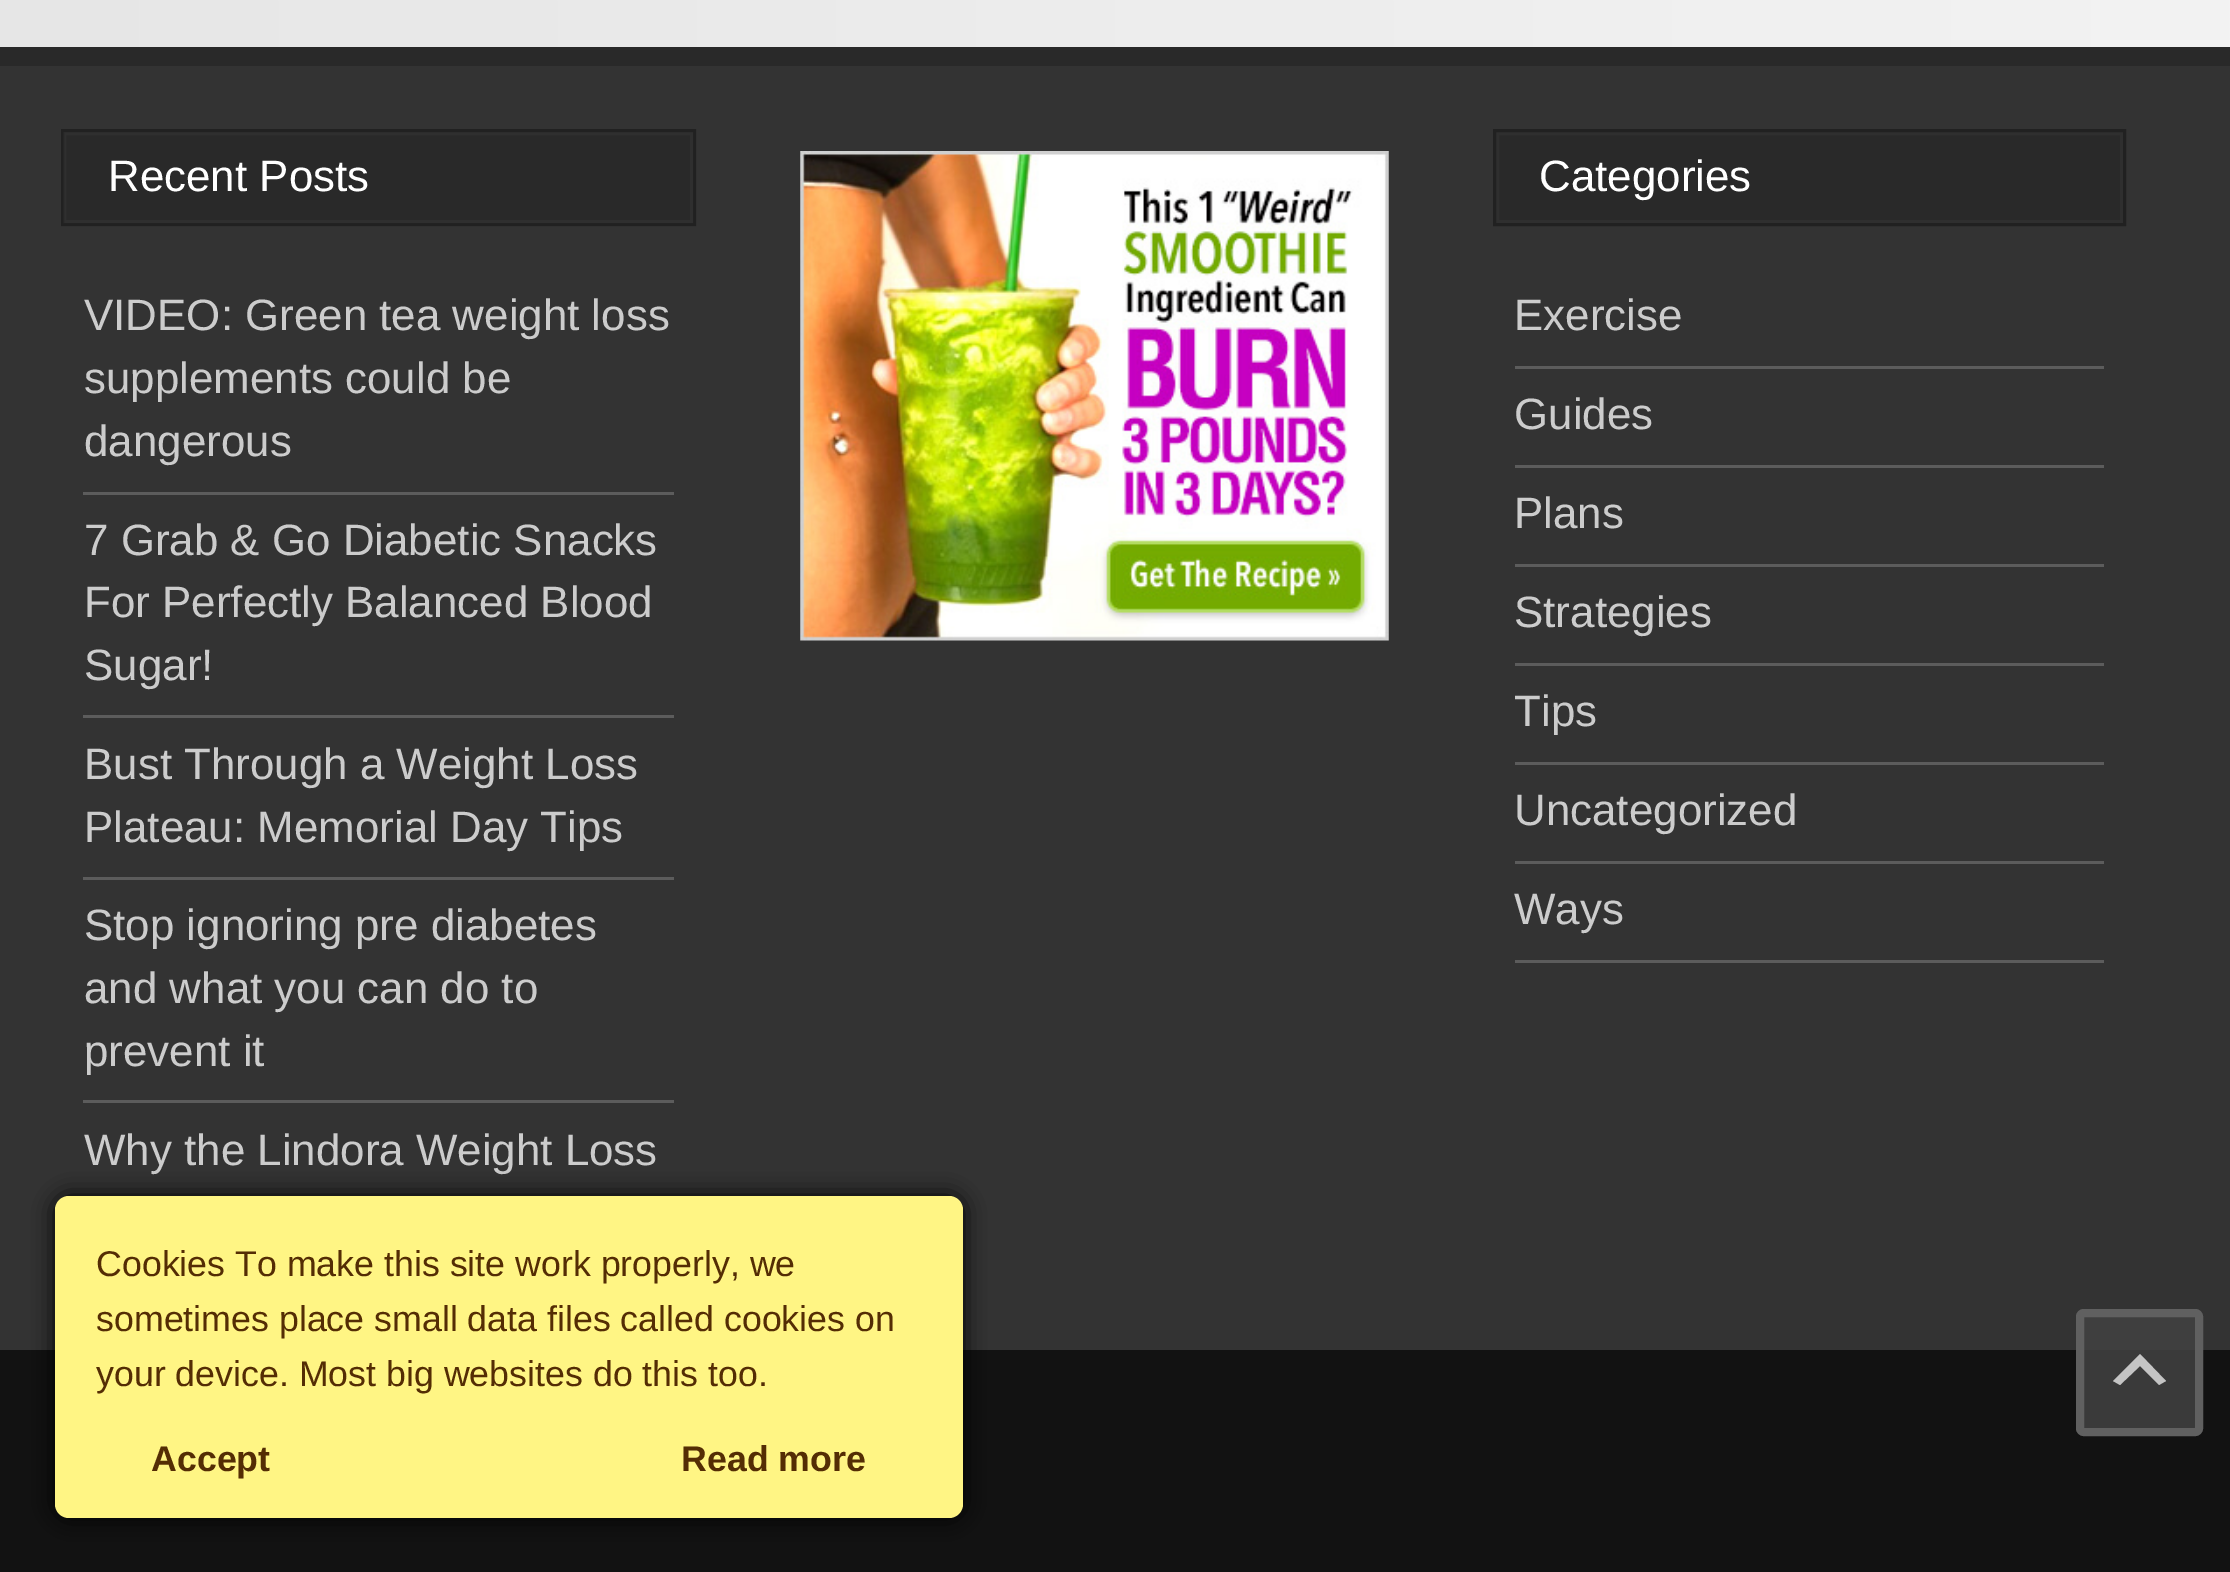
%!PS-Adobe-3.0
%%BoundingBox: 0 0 2230 1572
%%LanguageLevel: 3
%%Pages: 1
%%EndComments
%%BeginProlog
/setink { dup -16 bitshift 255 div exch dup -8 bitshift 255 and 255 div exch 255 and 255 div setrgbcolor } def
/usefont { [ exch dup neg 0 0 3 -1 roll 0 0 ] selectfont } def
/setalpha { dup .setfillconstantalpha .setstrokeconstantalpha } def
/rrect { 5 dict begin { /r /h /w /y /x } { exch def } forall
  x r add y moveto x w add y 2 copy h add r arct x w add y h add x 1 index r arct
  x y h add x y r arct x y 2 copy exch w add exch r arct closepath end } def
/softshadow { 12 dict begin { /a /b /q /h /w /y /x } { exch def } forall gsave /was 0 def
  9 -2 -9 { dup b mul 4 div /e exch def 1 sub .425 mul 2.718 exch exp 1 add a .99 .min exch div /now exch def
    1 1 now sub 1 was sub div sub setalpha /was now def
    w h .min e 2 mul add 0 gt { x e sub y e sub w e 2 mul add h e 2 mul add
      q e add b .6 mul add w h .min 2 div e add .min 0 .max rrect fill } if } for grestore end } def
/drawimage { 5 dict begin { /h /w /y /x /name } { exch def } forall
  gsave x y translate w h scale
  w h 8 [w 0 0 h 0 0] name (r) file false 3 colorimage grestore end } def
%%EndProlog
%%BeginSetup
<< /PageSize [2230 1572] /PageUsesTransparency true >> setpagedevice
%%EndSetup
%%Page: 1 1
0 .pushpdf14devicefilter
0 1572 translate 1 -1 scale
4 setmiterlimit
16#FFFFFF setink
0 0 2230 1572 rectfill
gsave 0 0 moveto 2230 0 lineto 2230 47 lineto 0 47 lineto closepath clip newpath
<< /ShadingType 2 /ColorSpace /DeviceRGB /Coords [0 -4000 2230 -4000] /Extend [true true] /Function << /FunctionType 2 /Domain [0 1] /C0 [0.902 0.902 0.902] /C1 [0.953 0.953 0.953] /N 1 >> >> shfill grestore
[
    [0 66 2230 1284 16#333333]
    [0 47 2230 19 16#292929]
    [61 129 635 97 16#292929]
] { aload pop setink rectfill } forall
16#2F2F2F setink
3 setlinewidth
64.5 133.5 627 88 rectstroke
0.2 setalpha
16#000000 setink
62.5 130.5 632 94 rectstroke
/LiberationSans-Regular 43.9 usefont
1 setalpha
16#FFFFFF setink
108 191 moveto (Recent Posts) show
16#5C5C5C setink
83 492 591 3 rectfill
16#CCCCCC setink
[
    [(VIDEO: Green tea weight loss) 84 330]
    [(supplements could be) 84 393]
    [(dangerous) 84 456]
] { aload pop moveto show } forall
16#5C5C5C setink
83 715 591 3 rectfill
16#CCCCCC setink
[
    [(7 Grab & Go Diabetic Snacks) 84 555]
    [(For Perfectly Balanced Blood) 84 617]
    [(Sugar!) 84 680]
] { aload pop moveto show } forall
16#5C5C5C setink
83 877 591 3 rectfill
16#CCCCCC setink
84 779 moveto (Bust Through a Weight Loss) show
84 842 moveto (Plateau: Memorial Day Tips) show
16#5C5C5C setink
83 1100 591 3 rectfill
16#CCCCCC setink
[
    [(Stop ignoring pre diabetes) 84 940]
    [(and what you can do to) 84 1003]
    [(prevent it) 84 1066]
    [(Why the Lindora Weight Loss) 84 1165]
] { aload pop moveto show } forall
(img1.raw) 800 151 589 490 drawimage
16#292929 setink
1497.5 133.5 moveto 2121.5 133.5 lineto 2121.5 221.5 lineto 1497.5 221.5 lineto closepath gsave fill grestore
16#2F2F2F setink
stroke
16#212121 setink
1494.5 130.5 630 94 rectstroke
16#FFFFFF setink
1539 191 moveto (Categories) show
16#5C5C5C setink
1515 366 589 3 rectfill
16#CCCCCC setink
1514 330 moveto (Exercise) show
16#5C5C5C setink
1515 465 589 3 rectfill
16#CCCCCC setink
1514 429 moveto (Guides) show
16#5C5C5C setink
1515 564 589 3 rectfill
16#CCCCCC setink
1514 528 moveto (Plans) show
16#5C5C5C setink
1515 663 589 3 rectfill
16#CCCCCC setink
1514 627 moveto (Strategies) show
16#5C5C5C setink
1515 762 589 3 rectfill
16#CCCCCC setink
1514 726 moveto (Tips) show
16#5C5C5C setink
1515 861 589 3 rectfill
16#CCCCCC setink
1514 825 moveto (Uncategorized) show
16#5C5C5C setink
1515 960 589 3 rectfill
16#CCCCCC setink
1514 924 moveto (Ways) show
16#121212 setink
0 1350 2230 222 rectfill
16#000000 setink
55 1196 908 322 14 11 1 softshadow
16#FFF584 setink
55 1196 908 322 14 rrect fill
/LiberationSans-Regular 35.75 usefont
16#542D04 setink
[
    [(Cookies To make this site work properly, we) 96 1276]
    [(sometimes place small data files called cookies on) 96 1331]
    [(your device. Most big websites do this too.) 96 1386]
] { aload pop moveto show } forall
/LiberationSans-Bold 35.75 usefont
151 1471 moveto (Accept) show
681 1471 moveto (Read more) show
0.85 setalpha
16#414141 setink
2076 1309 127 127 8 rrect fill
0.9 setalpha
16#646464 setink
8 setlinewidth
2080 1313 119 119 4 rrect stroke
1 setalpha
16#C4C4C4 setink
2159 1385 moveto 2140 1366 lineto 2120 1385 lineto 2113 1381 lineto 2140 1354 lineto 2166 1381 lineto closepath fill
.poppdf14devicefilter showpage
%%EOF
